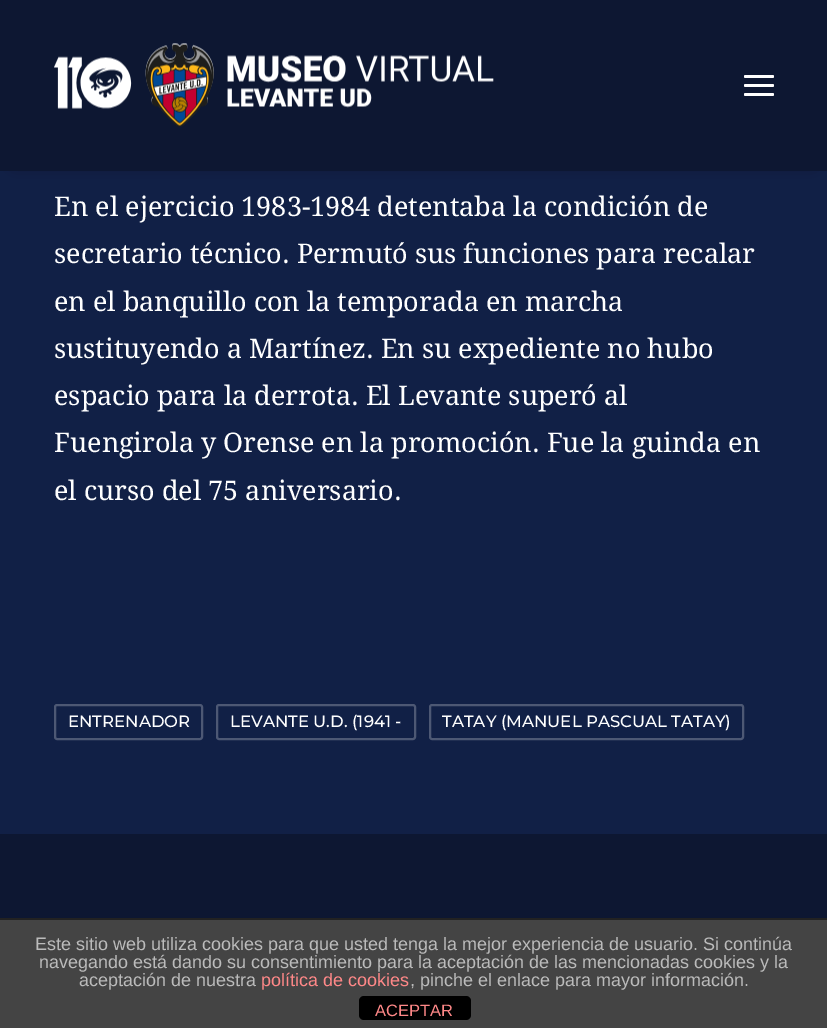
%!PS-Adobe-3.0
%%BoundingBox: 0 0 827 1028
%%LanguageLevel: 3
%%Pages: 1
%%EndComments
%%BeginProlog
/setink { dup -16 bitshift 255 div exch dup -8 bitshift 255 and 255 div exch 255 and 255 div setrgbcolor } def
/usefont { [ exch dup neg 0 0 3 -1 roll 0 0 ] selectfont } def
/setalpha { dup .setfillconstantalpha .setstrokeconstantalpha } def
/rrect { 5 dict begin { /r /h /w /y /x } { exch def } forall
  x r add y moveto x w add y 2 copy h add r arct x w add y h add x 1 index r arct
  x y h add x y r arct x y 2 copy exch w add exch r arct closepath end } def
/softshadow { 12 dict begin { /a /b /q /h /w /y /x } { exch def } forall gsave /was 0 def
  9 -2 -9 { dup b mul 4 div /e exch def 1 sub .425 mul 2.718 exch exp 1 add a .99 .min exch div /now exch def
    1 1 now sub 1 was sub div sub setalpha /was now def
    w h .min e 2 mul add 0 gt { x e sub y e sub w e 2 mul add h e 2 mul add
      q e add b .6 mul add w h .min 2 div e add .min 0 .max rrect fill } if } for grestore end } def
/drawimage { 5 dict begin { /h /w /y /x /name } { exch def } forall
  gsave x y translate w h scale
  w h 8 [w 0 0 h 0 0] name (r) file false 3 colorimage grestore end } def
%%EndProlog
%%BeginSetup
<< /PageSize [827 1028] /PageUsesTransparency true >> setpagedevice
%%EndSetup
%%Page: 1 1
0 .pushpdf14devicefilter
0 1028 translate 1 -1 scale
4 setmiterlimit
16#112046 setink
0 0 827 1028 rectfill
16#000000 setink
15 21 798 141 0 7.5 0.6 softshadow
16#0D1732 setink
0 0 827 171 rectfill
(img1.raw) 54 43 440 85 drawimage
16#FFFFFF setink
744 84 30 3 1.5 rrect fill
744 75 30 3 1.5 rrect fill
744 93 30 3 1.5 rrect fill
/DroidSerif-Regular 27 usefont
[
    [(En el ejercicio 1983-1984 detentaba la condición de) 54 216]
    [(secretario técnico. Permutó sus funciones para recalar) 54 263]
    [(en el banquillo con la temporada en marcha) 54 311]
    [(sustituyendo a Martínez. En su expediente no hubo) 54 358]
    [(espacio para la derrota. El Levante superó al) 54 405]
    [(Fuengirola y Orense en la promoción. Fue la guinda en) 54 452]
    [(el curso del 75 aniversario.) 54 500]
] { aload pop moveto show } forall
16#4D5874 setink
2 setlinewidth
55 705 147 34 2 rrect stroke
/Montserrat-Medium 16.5 usefont
16#FFFFFF setink
68 727 moveto (ENTRENADOR) show
16#4D5874 setink
217 705 198 34 2 rrect stroke
16#FFFFFF setink
230 727 moveto (LEVANTE U.D. \(1941 -) show
16#4D5874 setink
430 705 313 34 2 rrect stroke
16#FFFFFF setink
442 727 moveto (TATAY \(MANUEL PASCUAL TATAY\)) show
[
    [0 834 827 84 16#0D1732]
    [0 920 827 108 16#444444]
    [0 918 827 2 16#222222]
] { aload pop setink rectfill } forall
/LiberationSans-Regular 18 usefont
16#BBBBBB setink
[
    [(Este sitio web utiliza cookies para que usted tenga la mejor experiencia de usuario. Si continúa) 35 950]
    [(navegando está dando su consentimiento para la aceptación de las mencionadas cookies y la) 39 968]
    [(aceptación de nuestra) 79 986]
] { aload pop moveto show } forall
16#FF8888 setink
261 986 moveto (política de cookies) show
16#BBBBBB setink
410 986 moveto (, pinche el enlace para mayor información.) show
16#000000 setink
359 996 112 24 5 rrect fill
/LiberationSans-Regular 16.5 usefont
16#FF8888 setink
375 1016 moveto (ACEPTAR) show
.poppdf14devicefilter showpage
%%EOF
